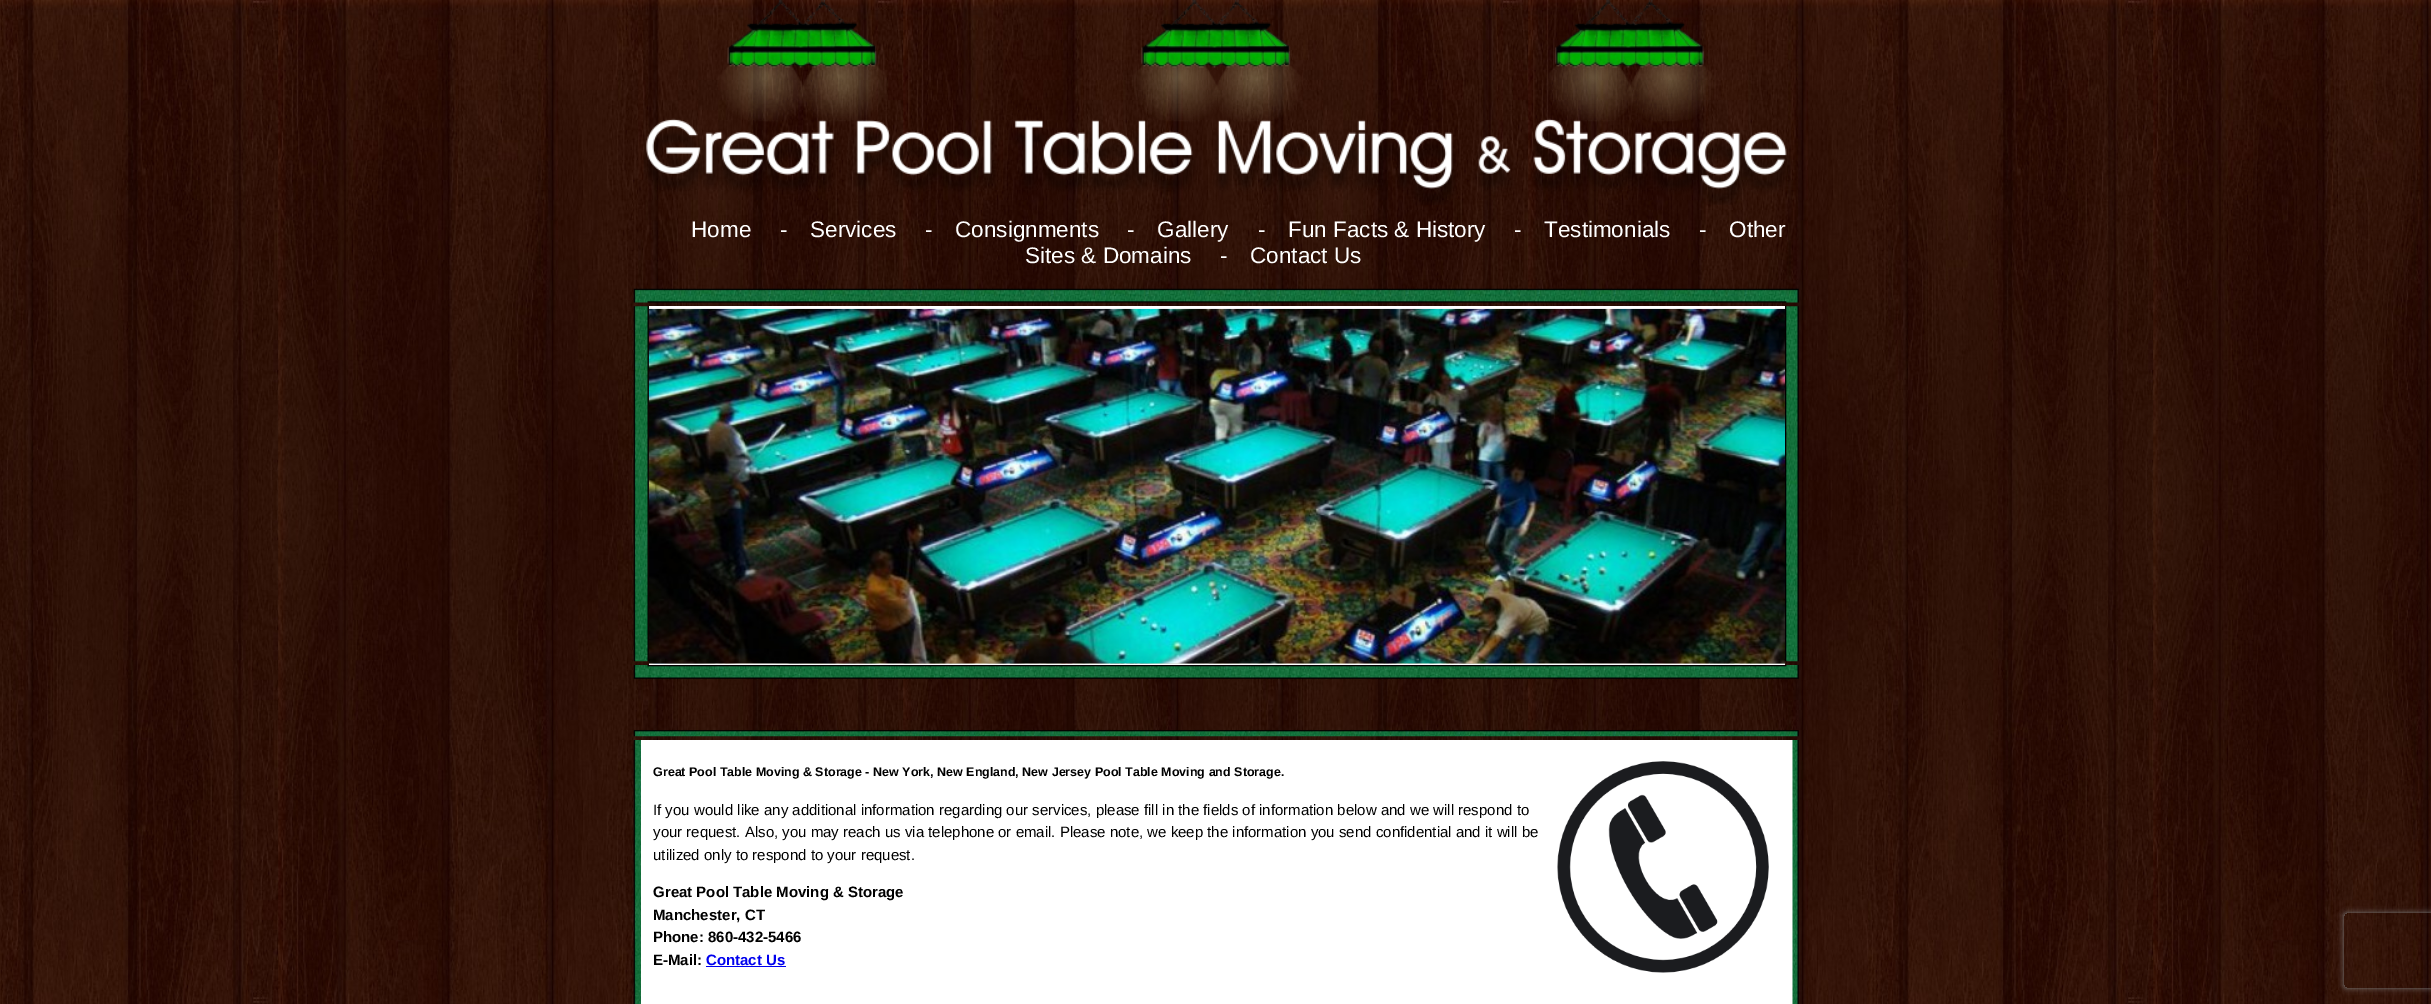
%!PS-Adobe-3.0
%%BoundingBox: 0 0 2431 1004
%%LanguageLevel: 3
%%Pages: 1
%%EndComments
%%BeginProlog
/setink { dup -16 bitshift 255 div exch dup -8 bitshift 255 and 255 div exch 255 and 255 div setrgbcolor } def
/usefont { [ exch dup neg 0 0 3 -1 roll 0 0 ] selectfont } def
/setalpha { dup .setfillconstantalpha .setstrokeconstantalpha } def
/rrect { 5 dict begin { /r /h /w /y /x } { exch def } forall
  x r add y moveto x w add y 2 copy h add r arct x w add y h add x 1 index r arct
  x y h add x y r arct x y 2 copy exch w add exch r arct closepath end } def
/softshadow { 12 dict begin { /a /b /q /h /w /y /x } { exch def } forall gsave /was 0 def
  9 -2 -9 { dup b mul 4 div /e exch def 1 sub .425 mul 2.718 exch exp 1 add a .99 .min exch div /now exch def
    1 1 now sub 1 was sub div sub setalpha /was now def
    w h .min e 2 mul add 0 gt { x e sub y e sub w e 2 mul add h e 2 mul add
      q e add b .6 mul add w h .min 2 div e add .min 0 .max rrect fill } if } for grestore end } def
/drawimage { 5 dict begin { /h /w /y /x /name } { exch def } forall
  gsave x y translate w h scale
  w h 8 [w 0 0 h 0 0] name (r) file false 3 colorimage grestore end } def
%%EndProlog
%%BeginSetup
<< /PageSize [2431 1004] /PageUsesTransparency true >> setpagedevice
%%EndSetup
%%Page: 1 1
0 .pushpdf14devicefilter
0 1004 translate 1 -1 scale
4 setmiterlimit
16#FFFFFF setink
0 0 2431 1004 rectfill
(img1.raw) 0 0 2431 1004 drawimage
(img2.raw) 644 0 1146 205 drawimage
/LiberationSans-Regular 22.5 usefont
[
    [(Home) 691 237]
    [(-) 780 237]
    [(Services) 810 237]
    [(-) 925 237]
    [(Consignments) 955 237]
    [(-) 1127 237]
    [(Gallery) 1157 237]
    [(-) 1258 237]
    [(Fun Facts & History) 1288 237]
    [(-) 1514 237]
    [(Testimonials) 1544 237]
    [(-) 1699 237]
    [(Other) 1729 237]
    [(Sites & Domains) 1025 263]
    [(-) 1220 263]
    [(Contact Us) 1250 263]
] { aload pop moveto show } forall
(img3.raw) 633 288 1166 15 drawimage
(img4.raw) 633 306 16 356 drawimage
649 306 1136 359 rectfill
(img5.raw) 648 308 1137 356 drawimage
(img6.raw) 649 663 1136 1 drawimage
(img7.raw) 1785 306 14 356 drawimage
(img8.raw) 633 665 1166 14 drawimage
(img9.raw) 633 730 1166 7 drawimage
(img10.raw) 633 740 8 264 drawimage
641 740 1152 264 rectfill
/LiberationSans-Bold 12.5 usefont
16#000000 setink
653 776 moveto (Great Pool Table Moving & Storage - New York, New England, New Jersey Pool Table Moving and Storage.) show
(img11.raw) 1557 761 212 212 drawimage
/LiberationSans-Regular 15 usefont
[
    [(If you would like any additional information regarding our services, please fill in the fields of information below and we will respond to) 653 815]
    [(your request. Also, you may reach us via telephone or email. Please note, we keep the information you send confidential and it will be) 653 837]
    [(utilized only to respond to your request.) 653 860]
] { aload pop moveto show } forall
/LiberationSans-Bold 15 usefont
[
    [(Great Pool Table Moving & Storage) 653 897]
    [(Manchester, CT) 653 920]
    [(Phone: 860-432-5466) 653 942]
    [(E-Mail:) 653 965]
] { aload pop moveto show } forall
16#0000EE setink
706 965 moveto (Contact Us) show
706 966 80 1 rectfill
(img12.raw) 1792 740 7 264 drawimage
gsave
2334 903 moveto 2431 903 lineto 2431 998 lineto 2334 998 lineto closepath 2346.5 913 moveto 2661.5 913 lineto 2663 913 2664 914 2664 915.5 curveto 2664 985.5 lineto 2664 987 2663 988 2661.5 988 curveto 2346.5 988 lineto 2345 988 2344 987 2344 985.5 curveto 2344 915.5 lineto 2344 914 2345 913 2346.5 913 curveto closepath eoclip newpath
16#808080 setink
2344 913 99 75 2.5 3 1 softshadow
grestore
.poppdf14devicefilter showpage
%%EOF
